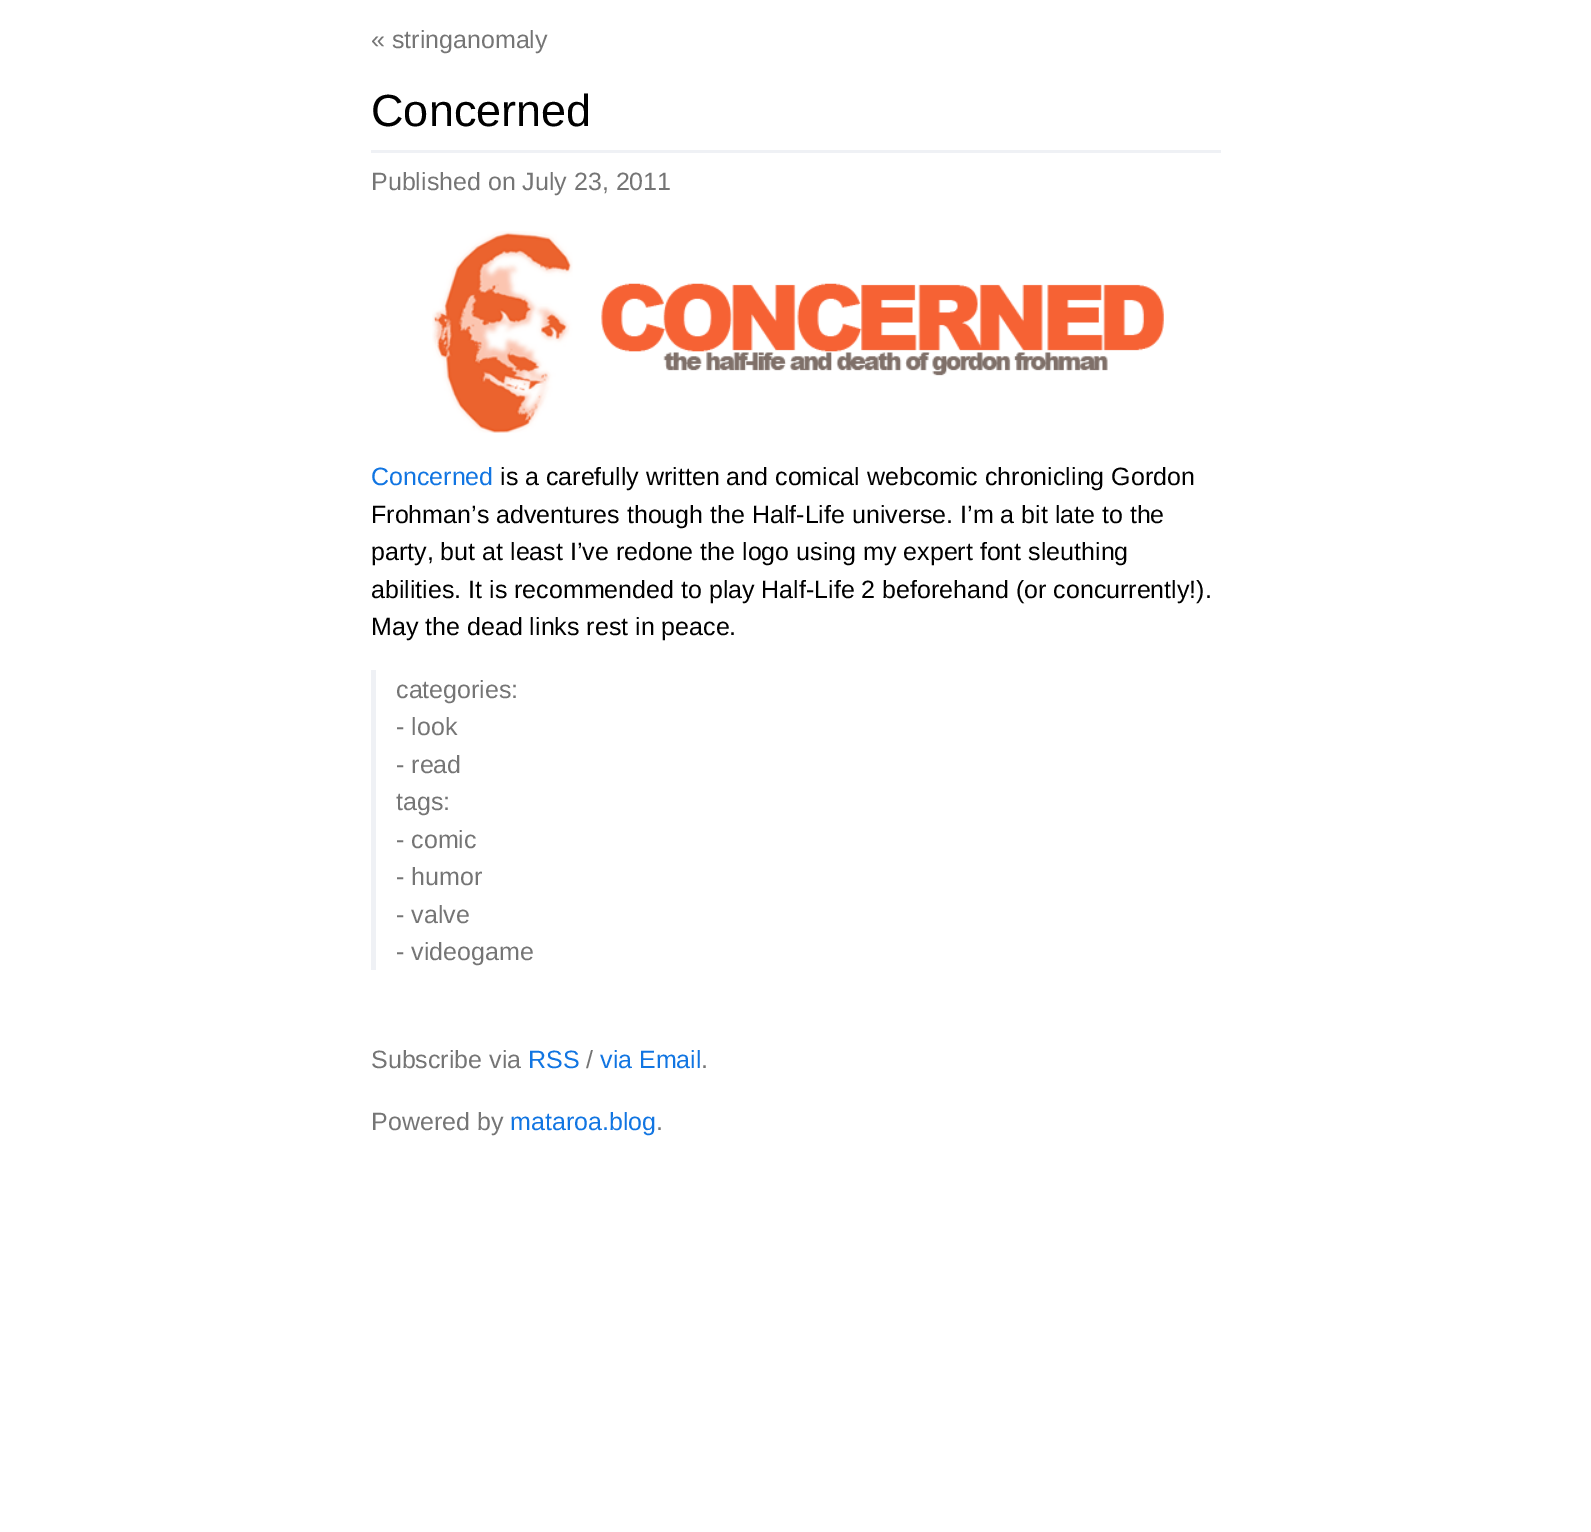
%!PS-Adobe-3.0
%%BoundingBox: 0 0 1591 1532
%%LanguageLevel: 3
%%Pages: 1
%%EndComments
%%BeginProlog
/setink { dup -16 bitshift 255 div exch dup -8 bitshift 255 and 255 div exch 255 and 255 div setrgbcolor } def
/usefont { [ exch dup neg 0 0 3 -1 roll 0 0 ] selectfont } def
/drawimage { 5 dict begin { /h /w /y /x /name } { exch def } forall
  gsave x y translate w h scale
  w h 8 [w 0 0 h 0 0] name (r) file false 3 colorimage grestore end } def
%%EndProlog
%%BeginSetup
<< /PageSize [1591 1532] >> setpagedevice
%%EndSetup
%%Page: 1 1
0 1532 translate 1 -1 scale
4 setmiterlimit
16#FFFFFF setink
0 0 1591 1532 rectfill
/LiberationSans-Regular 25 usefont
16#757575 setink
371 48 moveto (« stringanomaly) show
16#EFF1F5 setink
371 150 850 3 rectfill
/LiberationSans-Regular 45 usefont
16#000000 setink
371 126 moveto (Concerned) show
/LiberationSans-Regular 25 usefont
16#757575 setink
371 190 moveto (Published on July 23, 2011) show
(img1.raw) 432 231 732 202 drawimage
16#1175E2 setink
371 485 moveto (Concerned) show
16#000000 setink
[
    [(is a carefully written and comical webcomic chronicling Gordon) 500 485]
    [(Frohman’s adventures though the Half-Life universe. I’m a bit late to the) 371 523]
    [(party, but at least I’ve redone the logo using my expert font sleuthing) 371 560]
    [(abilities. It is recommended to play Half-Life 2 beforehand \(or concurrently!\).) 371 598]
    [(May the dead links rest in peace.) 371 635]
] { aload pop moveto show } forall
16#EFF1F5 setink
371 670 5 300 rectfill
16#757575 setink
[
    [(categories:) 396 698]
    [(- look) 396 735]
    [(- read) 396 773]
    [(tags:) 396 810]
    [(- comic) 396 848]
    [(- humor) 396 885]
    [(- valve) 396 923]
    [(- videogame) 396 960]
    [(Subscribe via) 371 1068]
] { aload pop moveto show } forall
16#1175E2 setink
528 1068 moveto (RSS) show
16#757575 setink
586 1068 moveto (/) show
16#1175E2 setink
600 1068 moveto (via Email) show
16#757575 setink
701 1068 moveto (.) show
371 1130 moveto (Powered by) show
16#1175E2 setink
510 1130 moveto (mataroa.blog) show
16#757575 setink
656 1130 moveto (.) show
showpage
%%EOF
